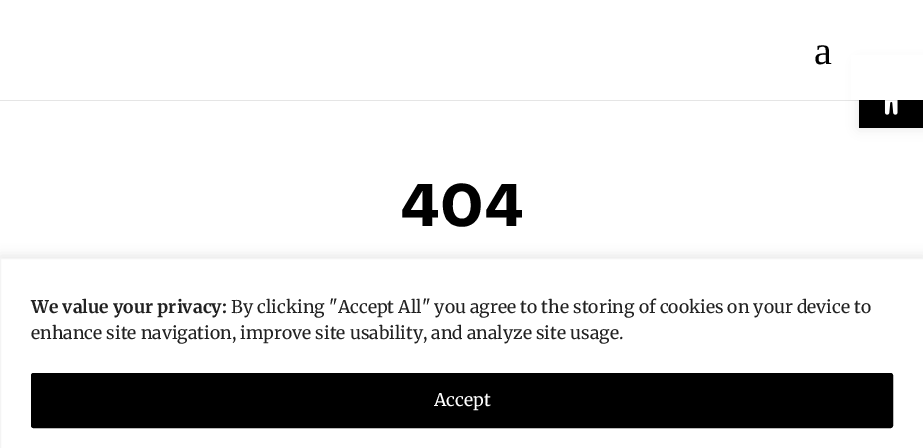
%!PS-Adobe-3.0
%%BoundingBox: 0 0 923 448
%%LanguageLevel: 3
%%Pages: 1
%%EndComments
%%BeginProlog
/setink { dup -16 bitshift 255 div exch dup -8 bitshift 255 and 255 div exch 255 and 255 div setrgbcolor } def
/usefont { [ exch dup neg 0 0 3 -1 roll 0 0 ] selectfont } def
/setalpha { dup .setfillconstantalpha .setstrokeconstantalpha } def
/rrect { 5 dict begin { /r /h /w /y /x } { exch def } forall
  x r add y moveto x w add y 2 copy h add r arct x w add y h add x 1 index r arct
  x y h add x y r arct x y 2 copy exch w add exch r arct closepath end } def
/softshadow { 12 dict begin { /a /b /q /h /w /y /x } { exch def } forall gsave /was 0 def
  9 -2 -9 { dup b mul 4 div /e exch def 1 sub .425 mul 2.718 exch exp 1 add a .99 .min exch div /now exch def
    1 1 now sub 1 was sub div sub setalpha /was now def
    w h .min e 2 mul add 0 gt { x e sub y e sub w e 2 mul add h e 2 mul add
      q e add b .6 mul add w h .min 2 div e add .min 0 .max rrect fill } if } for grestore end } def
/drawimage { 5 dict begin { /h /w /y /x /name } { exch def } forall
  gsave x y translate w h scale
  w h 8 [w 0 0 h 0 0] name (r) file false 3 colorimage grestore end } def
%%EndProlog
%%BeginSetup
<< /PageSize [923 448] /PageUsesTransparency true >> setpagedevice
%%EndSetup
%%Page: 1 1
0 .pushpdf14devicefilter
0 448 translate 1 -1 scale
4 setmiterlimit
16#FFFFFF setink
0 0 923 448 rectfill
16#000000 setink
859 63 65 65 0 6 0.1 softshadow
859 100 64 28 rectfill
(img1.raw) 884 100 14 15 drawimage
0.1 setalpha
0 100 moveto 0 101 lineto 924 101 lineto 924 1 lineto 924 100 lineto closepath fill
1 setalpha
16#FFFFFF setink
851 55 72 45 rectfill
/LiberationSerif-Regular 40 usefont
16#000000 setink
814 64 moveto (a) show
/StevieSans-Bold 62 usefont
400 226 moveto (404) show
16#ACABAB setink
0 256 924 192 0 6 0.3 softshadow
16#FFFFFF setink
0.5 258.5 moveto 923.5 258.5 lineto 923.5 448.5 lineto 0.5 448.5 lineto closepath gsave fill grestore
16#F4F4F4 setink
stroke
/Merriweather-Bold 17.5 usefont
16#212121 setink
31 313 moveto (We value your privacy:) show
/Merriweather-Regular 17.5 usefont
231 313 moveto (By clicking "Accept All" you agree to the storing of cookies on your device to) show
31 339 moveto (enhance site navigation, improve site usability, and analyze site usage.) show
16#000000 setink
32.5 374.5 859 52 1 rrect gsave fill grestore
3 setlinewidth
stroke
16#FFFFFF setink
434 406 moveto (Accept) show
.poppdf14devicefilter showpage
%%EOF
